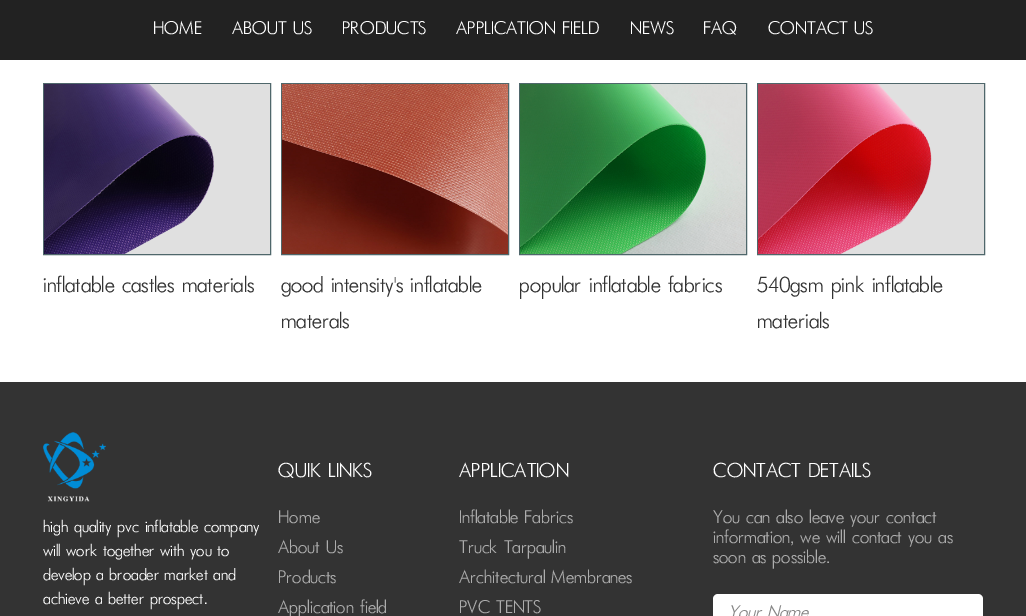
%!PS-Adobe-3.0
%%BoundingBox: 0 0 1026 616
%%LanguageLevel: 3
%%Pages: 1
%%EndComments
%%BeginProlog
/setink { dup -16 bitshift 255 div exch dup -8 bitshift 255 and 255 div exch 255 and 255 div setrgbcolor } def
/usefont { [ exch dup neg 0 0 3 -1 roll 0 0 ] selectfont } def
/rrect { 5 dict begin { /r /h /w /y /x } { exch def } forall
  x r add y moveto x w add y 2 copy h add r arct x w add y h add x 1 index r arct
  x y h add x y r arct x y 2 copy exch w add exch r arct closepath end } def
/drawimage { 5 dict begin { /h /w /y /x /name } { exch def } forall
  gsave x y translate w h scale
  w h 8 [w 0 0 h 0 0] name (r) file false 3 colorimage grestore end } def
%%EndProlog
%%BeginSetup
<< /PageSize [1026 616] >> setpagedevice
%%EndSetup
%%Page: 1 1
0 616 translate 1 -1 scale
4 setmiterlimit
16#FFFFFF setink
0 0 1026 616 rectfill
16#222222 setink
0 0 1026 60 rectfill
/Futura-Light 20 usefont
16#FFFFFF setink
[
    [(HOME) 153 34]
    [(ABOUT US) 232 34]
    [(PRODUCTS) 342 34]
    [(APPLICATION FIELD) 456 34]
    [(NEWS) 630 34]
    [(FAQ) 703 34]
    [(CONTACT US) 768 34]
] { aload pop moveto show } forall
16#4F676B setink
43.5 83.5 227 171 rectstroke
(img1.raw) 44 84 226 170 drawimage
/Futura-Light 24 usefont
16#333333 setink
43 292 moveto (inflatable castles materials) show
16#4F676B setink
281.5 83.5 227 171 rectstroke
(img2.raw) 282 84 226 170 drawimage
16#333333 setink
281 292 moveto (good intensity's inflatable) show
281 328 moveto (materals) show
16#4F676B setink
519.5 83.5 227 171 rectstroke
(img3.raw) 520 84 226 170 drawimage
16#333333 setink
519 292 moveto (popular inflatable fabrics) show
16#4F676B setink
757.5 83.5 227 171 rectstroke
(img4.raw) 758 84 226 170 drawimage
16#333333 setink
757 292 moveto (540gsm pink inflatable) show
757 328 moveto (materials) show
0 382 1026 234 rectfill
(img5.raw) 43 432 63 70 drawimage
/Futura-Light 18 usefont
16#FFFFFF setink
[
    [(high quality pvc inflatable company) 43 532]
    [(will work together with you to) 43 556]
    [(develop a broader market and) 43 580]
    [(achieve a better prospect.) 43 604]
] { aload pop moveto show } forall
/Futura-Light 22 usefont
278 477 moveto (QUIK LINKS) show
/Futura-Light 20 usefont
16#ADADAD setink
[
    [(Home) 278 523]
    [(About Us) 278 553]
    [(Products) 278 583]
    [(Application field) 278 613]
] { aload pop moveto show } forall
/Futura-Light 22 usefont
16#FFFFFF setink
459 477 moveto (APPLICATION) show
/Futura-Light 20 usefont
16#ADADAD setink
[
    [(Inflatable Fabrics) 459 523]
    [(Truck Tarpaulin) 459 553]
    [(Architectural Membranes) 459 583]
    [(PVC TENTS) 459 613]
] { aload pop moveto show } forall
/Futura-Light 22 usefont
16#FFFFFF setink
713 477 moveto (CONTACT DETAILS) show
/Futura-Light 20 usefont
16#ADADAD setink
[
    [(You can also leave your contact) 713 523]
    [(information, we will contact you as) 713 543]
    [(soon as possible.) 713 563]
] { aload pop moveto show } forall
16#FFFFFF setink
713 594 270 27 5 rrect fill
/Futura-LightItalic 20 usefont
16#858585 setink
728 618 moveto (Your Name) show
showpage
%%EOF
